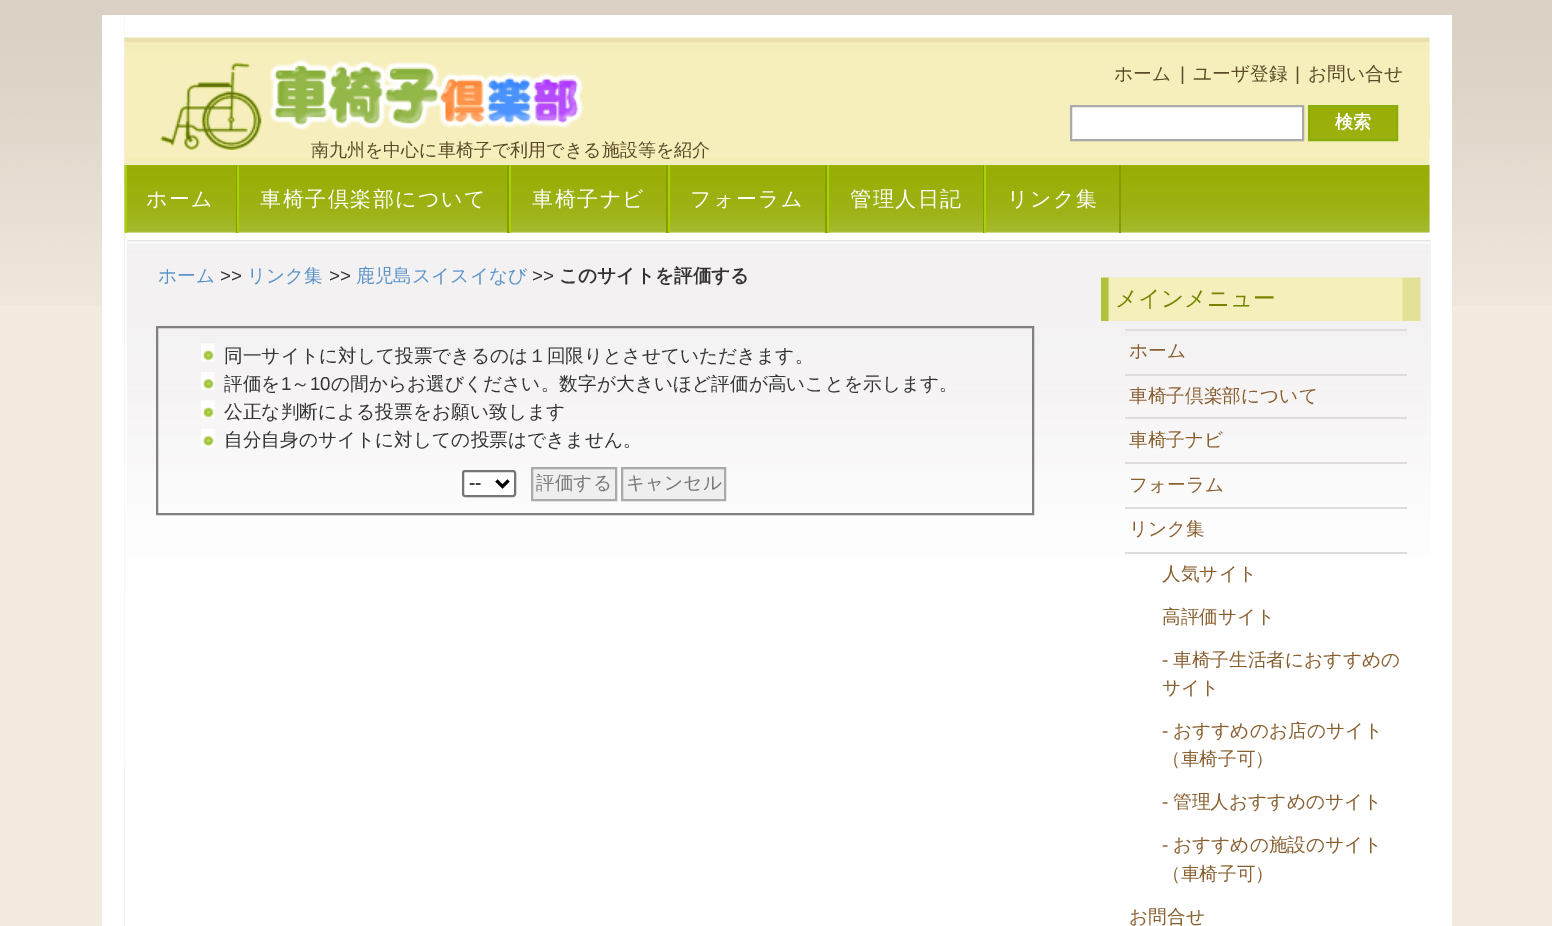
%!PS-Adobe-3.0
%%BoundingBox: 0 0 1552 926
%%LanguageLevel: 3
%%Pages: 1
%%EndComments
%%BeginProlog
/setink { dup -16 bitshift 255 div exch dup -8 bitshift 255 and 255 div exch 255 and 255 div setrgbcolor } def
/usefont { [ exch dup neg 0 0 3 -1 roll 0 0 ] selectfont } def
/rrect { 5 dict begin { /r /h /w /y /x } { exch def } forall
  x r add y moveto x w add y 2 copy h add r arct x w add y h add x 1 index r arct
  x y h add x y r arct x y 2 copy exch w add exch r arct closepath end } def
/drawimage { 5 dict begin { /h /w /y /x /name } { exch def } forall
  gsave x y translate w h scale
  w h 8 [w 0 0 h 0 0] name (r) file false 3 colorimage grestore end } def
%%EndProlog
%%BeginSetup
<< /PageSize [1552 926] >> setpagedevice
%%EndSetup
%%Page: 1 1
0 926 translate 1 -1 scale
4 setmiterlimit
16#DAD0C4 setink
0 0 1552 926 rectfill
16#F3EBE0 setink
0 306 1552 620 rectfill
(img1.raw) 0 15 1552 291 drawimage
[
    [102 15 1350 911 16#FFFFFF]
    [124 15 1306 911 16#F2F0F1]
    [1429 15 1 150 16#FFFFFF]
] { aload pop setink rectfill } forall
(img2.raw) 124 15 1306 150 drawimage
(img3.raw) 160 60 424 90 drawimage
/WenQuanYiZenHei-Medium 18.7 usefont
16#5B4A29 setink
1114 80 moveto (ホーム) show
/LiberationSans-Regular 18.7 usefont
1180 80 moveto (|) show
/WenQuanYiZenHei-Medium 18.7 usefont
1193 80 moveto (ユーザ登録) show
/LiberationSans-Regular 18.7 usefont
1295 80 moveto (|) show
/WenQuanYiZenHei-Medium 18.7 usefont
1308 80 moveto (お問い合せ) show
16#F6EFBB setink
1429 105 1 36 rectfill
16#FFFFFF setink
1071 106 moveto 1303 106 lineto 1303 140 lineto 1071 140 lineto closepath gsave fill grestore
16#AAAAAA setink
2 setlinewidth
stroke
(img4.raw) 1310 107 86 32 drawimage
16#88AD0C setink
1309 106 88 34 rectstroke
/WenQuanYiZenHei-Bold 18 usefont
16#FFFFFF setink
1335 128 moveto (検索) show
/WenQuanYiZenHei-Medium 18 usefont
16#5B4A29 setink
311 156 moveto (南九州を中心に車椅子で利用できる施設等を紹介) show
(img5.raw) 124 165 1306 68 drawimage
16#899D00 setink
236 165 1 68 rectfill
16#A7D101 setink
125 165 2 68 rectfill
/WenQuanYiZenHei-Medium 21 usefont
16#FFFFFF setink
146 206 moveto 1.5 0 (ホーム) ashow
16#899D00 setink
507 165 2 68 rectfill
16#A7D101 setink
237 165 2 68 rectfill
16#FFFFFF setink
260 206 moveto 1.5 0 (車椅子倶楽部について) ashow
16#899D00 setink
666 165 2 68 rectfill
16#A7D101 setink
509 165 2 68 rectfill
16#FFFFFF setink
532 206 moveto 1.5 0 (車椅子ナビ) ashow
16#899D00 setink
825 165 2 68 rectfill
16#A7D101 setink
668 165 2 68 rectfill
16#FFFFFF setink
690 206 moveto 1.5 0 (フォーラム) ashow
16#899D00 setink
983 165 1 68 rectfill
16#A7D101 setink
827 165 2 68 rectfill
16#FFFFFF setink
850 206 moveto 1.5 0 (管理人日記) ashow
16#899D00 setink
1119 165 2 68 rectfill
16#A7D101 setink
984 165 2 68 rectfill
16#FFFFFF setink
1007 206 moveto 1.5 0 (リンク集) ashow
127 765 1303 161 rectfill
(img6.raw) 124 240 1307 525 drawimage
125 233 1308 7 rectfill
125 233 2 693 rectfill
/WenQuanYiZenHei-Medium 18.7 usefont
16#5A93C9 setink
158 282 moveto (ホーム) show
/LiberationSans-Regular 18.7 usefont
16#333333 setink
220 282 moveto (>>) show
/WenQuanYiZenHei-Medium 18.7 usefont
16#5A93C9 setink
247 282 moveto (リンク集) show
/LiberationSans-Regular 18.7 usefont
16#333333 setink
329 282 moveto (>>) show
/WenQuanYiZenHei-Medium 18.7 usefont
16#5A93C9 setink
356 282 moveto (鹿児島スイスイなび) show
/LiberationSans-Regular 18.7 usefont
16#333333 setink
532 282 moveto (>>) show
/WenQuanYiZenHei-Bold 18.7 usefont
559 282 moveto (このサイトを評価する) show
16#808080 setink
157 327 876 187 rectstroke
(img7.raw) 201 343 14 19 drawimage
/WenQuanYiZenHei-Medium 18.7 usefont
16#333333 setink
224 362 moveto (同一サイトに対して投票できるのは１回限りとさせていただきます。) show
(img8.raw) 201 372 14 18 drawimage
224 390 moveto (評価を) show
/LiberationSans-Regular 18.7 usefont
281 390 moveto (1) show
/WenQuanYiZenHei-Medium 18.7 usefont
291 390 moveto (～) show
/LiberationSans-Regular 18.7 usefont
310 390 moveto (10) show
/WenQuanYiZenHei-Medium 18.7 usefont
331 390 moveto (の間からお選びください。数字が大きいほど評価が高いことを示します。) show
(img9.raw) 201 400 14 19 drawimage
224 418 moveto (公正な判断による投票をお願い致します) show
(img10.raw) 201 429 14 18 drawimage
224 446 moveto (自分自身のサイトに対しての投票はできません。) show
16#FFFFFF setink
463 471 52 25 2 rrect gsave fill grestore
16#767676 setink
stroke
16#000000 setink
3 setlinewidth
496.5 480.5 moveto 502.5 486.5 lineto 508.5 480.5 lineto stroke
/LiberationSans-Regular 18.7 usefont
469 489 moveto (--) show
16#EFEFEF setink
532 468 moveto 616 468 lineto 616 500 lineto 532 500 lineto closepath gsave fill grestore
16#AAAAAA setink
2 setlinewidth
stroke
/WenQuanYiZenHei-Medium 18.7 usefont
16#777777 setink
536 489 moveto (評価する) show
16#EFEFEF setink
622 468 moveto 725 468 lineto 725 500 lineto 622 500 lineto closepath gsave fill grestore
16#AAAAAA setink
stroke
16#777777 setink
626 489 moveto (キャンセル) show
(img11.raw) 1101 277 320 44 drawimage
/WenQuanYiZenHei-Medium 22.5 usefont
16#758500 setink
1115 306 moveto (メインメニュー) show
16#DDDDDD setink
1125 329 282 2 rectfill
1125 374 282 2 rectfill
/WenQuanYiZenHei-Medium 18.7 usefont
16#895F30 setink
1129 357 moveto (ホーム) show
16#DDDDDD setink
1125 417 282 2 rectfill
16#895F30 setink
1129 402 moveto (車椅子倶楽部について) show
16#DDDDDD setink
1125 462 282 2 rectfill
16#895F30 setink
1129 446 moveto (車椅子ナビ) show
16#DDDDDD setink
1125 507 282 2 rectfill
16#895F30 setink
1129 491 moveto (フォーラム) show
16#DDDDDD setink
1125 552 282 2 rectfill
16#895F30 setink
[
    [(リンク集) 1129 535]
    [(人気サイト) 1162 580]
    [(高評価サイト) 1162 623]
] { aload pop moveto show } forall
/LiberationSans-Regular 18.7 usefont
1162 666 moveto (-) show
/WenQuanYiZenHei-Medium 18.7 usefont
1173 666 moveto (車椅子生活者におすすめの) show
1162 694 moveto (サイト) show
/LiberationSans-Regular 18.7 usefont
1162 737 moveto (-) show
/WenQuanYiZenHei-Medium 18.7 usefont
1173 737 moveto (おすすめのお店のサイト) show
1162 765 moveto (（車椅子可）) show
/LiberationSans-Regular 18.7 usefont
1162 808 moveto (-) show
/WenQuanYiZenHei-Medium 18.7 usefont
1173 808 moveto (管理人おすすめのサイト) show
/LiberationSans-Regular 18.7 usefont
1162 851 moveto (-) show
/WenQuanYiZenHei-Medium 18.7 usefont
[
    [(おすすめの施設のサイト) 1173 851]
    [(（車椅子可）) 1162 880]
    [(お問合せ) 1129 923]
] { aload pop moveto show } forall
showpage
%%EOF
